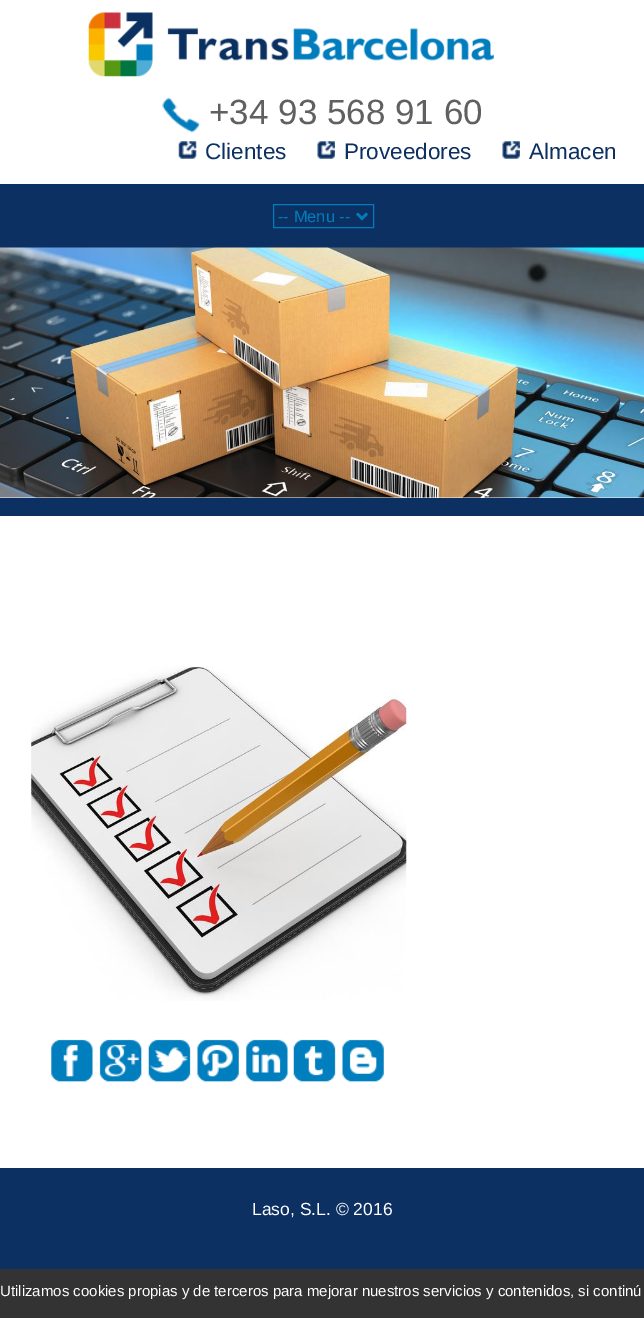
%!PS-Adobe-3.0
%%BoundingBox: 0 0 644 1318
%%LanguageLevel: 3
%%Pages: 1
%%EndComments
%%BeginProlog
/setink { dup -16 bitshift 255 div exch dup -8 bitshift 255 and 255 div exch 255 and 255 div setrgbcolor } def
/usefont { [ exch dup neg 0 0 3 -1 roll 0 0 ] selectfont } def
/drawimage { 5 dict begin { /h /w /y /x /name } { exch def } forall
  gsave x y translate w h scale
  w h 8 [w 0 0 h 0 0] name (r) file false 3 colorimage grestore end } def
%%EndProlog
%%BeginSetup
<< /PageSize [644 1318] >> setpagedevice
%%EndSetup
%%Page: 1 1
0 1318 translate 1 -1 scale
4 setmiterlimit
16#FFFFFF setink
0 0 644 1318 rectfill
(img1.raw) 88 12 406 65 drawimage
(img2.raw) 162 97 38 36 drawimage
/LiberationSans-Regular 35 usefont
16#606060 setink
209 124 moveto (+34 93 568 91 60) show
(img3.raw) 178 141 19 18 drawimage
/LiberationSans-Regular 22.5 usefont
16#0B3061 setink
205 159 moveto (Clientes) show
(img4.raw) 317 141 18 18 drawimage
344 159 moveto (Proveedores) show
(img4.raw) 502 141 18 18 drawimage
529 159 moveto (Almacen) show
0 184 644 64 rectfill
16#017DBD setink
273.5 204.5 100 23 rectstroke
2.5 setlinewidth
357 213.5 moveto 362 218.5 lineto 367 213.5 lineto stroke
/LiberationSans-Regular 16.5 usefont
278 222 moveto (-- Menu --) show
(img5.raw) 0 247 644 251 drawimage
16#0B3061 setink
0 498 644 18 rectfill
(img6.raw) 31 666 376 335 drawimage
(img7.raw) 51 1039 42 43 drawimage
(img8.raw) 99 1039 43 43 drawimage
(img9.raw) 148 1039 43 43 drawimage
(img10.raw) 197 1039 42 43 drawimage
(img11.raw) 246 1039 42 43 drawimage
(img12.raw) 293 1039 43 43 drawimage
(img13.raw) 342 1039 42 43 drawimage
0 1168 644 101 rectfill
/LiberationSans-Regular 17.5 usefont
16#FFFFFF setink
252 1215 moveto (Laso, S.L. © 2016) show
16#333333 setink
0 1269 644 49 rectfill
/LiberationSans-Regular 15 usefont
16#FFFFFF setink
0 1296 moveto (Utilizamos cookies propias y de terceros para mejorar nuestros servicios y contenidos, si continú) show
showpage
%%EOF
